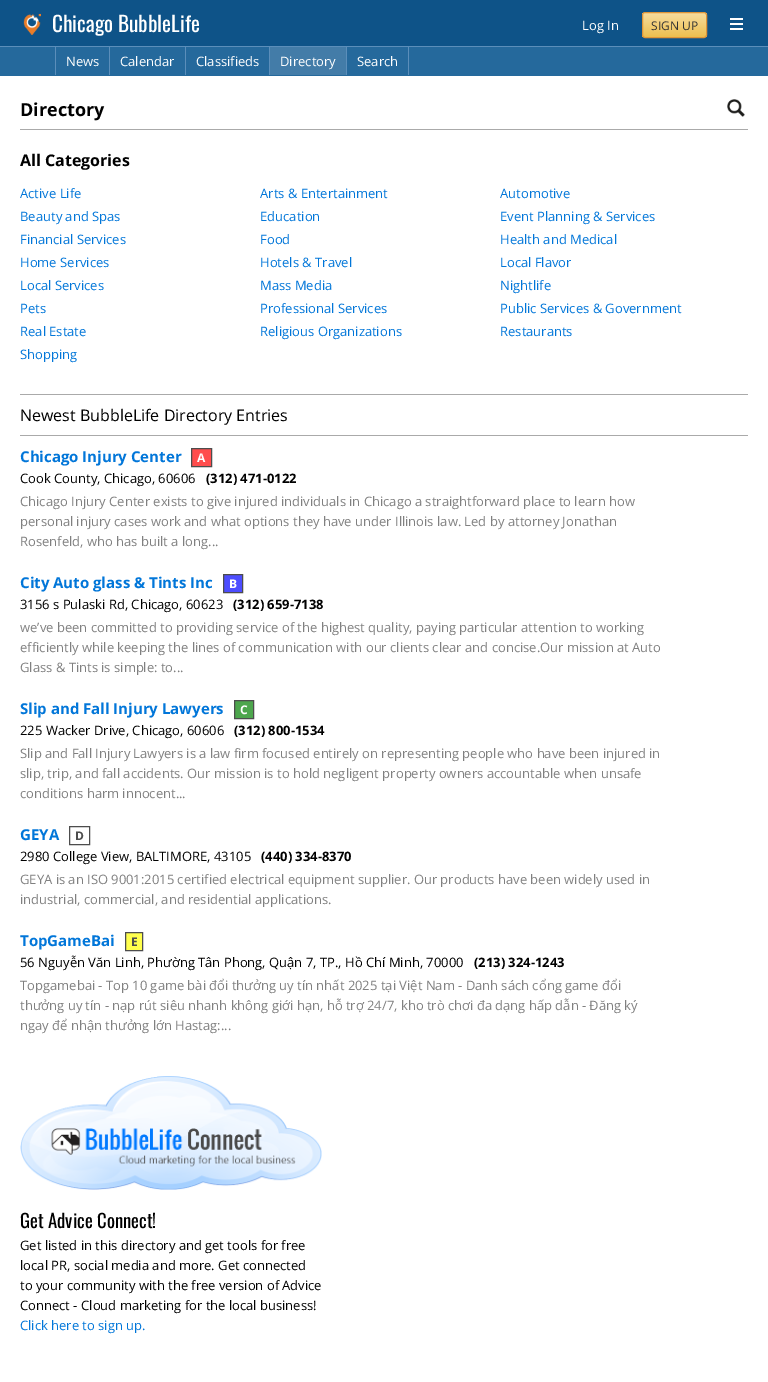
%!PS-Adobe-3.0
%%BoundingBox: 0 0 768 1382
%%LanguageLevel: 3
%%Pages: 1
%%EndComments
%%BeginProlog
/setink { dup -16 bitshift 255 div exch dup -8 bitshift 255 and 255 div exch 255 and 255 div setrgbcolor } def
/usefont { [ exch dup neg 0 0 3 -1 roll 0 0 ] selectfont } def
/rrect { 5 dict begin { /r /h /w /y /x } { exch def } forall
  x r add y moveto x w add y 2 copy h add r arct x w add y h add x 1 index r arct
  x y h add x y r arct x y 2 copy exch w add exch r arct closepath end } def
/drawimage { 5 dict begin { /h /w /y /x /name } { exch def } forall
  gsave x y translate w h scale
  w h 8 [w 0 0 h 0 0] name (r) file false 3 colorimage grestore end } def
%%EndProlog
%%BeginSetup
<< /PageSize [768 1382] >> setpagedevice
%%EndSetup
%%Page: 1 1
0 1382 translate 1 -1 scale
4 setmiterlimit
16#FFFFFF setink
0 0 768 1382 rectfill
16#0E5388 setink
0 0 768 46 rectfill
(img1.raw) 23 13 18 22 drawimage
/Oswald-Regular 21.25 usefont
16#FFFFFF setink
52 32 moveto (Chicago BubbleLife) show
/OpenSans-Regular 13 usefont
582 30 moveto (Log In) show
gsave
642 12 65 26 3 rrect clip newpath
gsave 642 13 moveto 707 13 lineto 707 37 lineto 642 37 lineto closepath clip newpath
<< /ShadingType 2 /ColorSpace /DeviceRGB /Coords [675 13 675 37] /Extend [true true] /Function << /FunctionType 2 /Domain [0 1] /C0 [0.969 0.867 0.62] /C1 [0.929 0.749 0.31] /N 1 >> >> shfill grestore
grestore
16#DF9538 setink
642.5 12.5 64 25 2.5 rrect stroke
/OpenSans-Regular 12 usefont
16#333333 setink
651 30 moveto (SIGN UP) show
(img2.raw) 730 18 13 12 drawimage
[
    [0 47 768 29 16#25699C]
    [0 46 768 1 16#5B8EBA]
    [109 47 1 28 16#5B8EBA]
    [55 47 1 28 16#5B8EBA]
] { aload pop setink rectfill } forall
/OpenSans-Regular 13 usefont
16#FFFFFF setink
66 66 moveto (News) show
16#5B8EBA setink
185 47 1 28 rectfill
16#FFFFFF setink
120 66 moveto (Calendar) show
16#5B8EBA setink
269 47 1 28 rectfill
16#FFFFFF setink
196 66 moveto (Classifieds) show
16#437CA8 setink
270 47 76 28 rectfill
16#5B8EBA setink
346 47 1 28 rectfill
16#FFFFFF setink
280 66 moveto (Directory) show
16#5B8EBA setink
408 47 1 28 rectfill
16#FFFFFF setink
357 66 moveto (Search) show
16#AAAAAA setink
20 129 728 1 rectfill
/OpenSans-Bold 18 usefont
16#000000 setink
20 116 moveto (Directory) show
(img3.raw) 727 99 18 18 drawimage
/OpenSans-Bold 16 usefont
20 166 moveto (All Categories) show
/OpenSans-Regular 13 usefont
16#0176D9 setink
[
    [(Active Life) 20 198]
    [(Arts & Entertainment) 260 198]
    [(Automotive) 500 198]
    [(Beauty and Spas) 20 221]
    [(Education) 260 221]
    [(Event Planning & Services) 500 221]
    [(Financial Services) 20 244]
    [(Food) 260 244]
    [(Health and Medical) 500 244]
    [(Home Services) 20 267]
    [(Hotels & Travel) 260 267]
    [(Local Flavor) 500 267]
    [(Local Services) 20 290]
    [(Mass Media) 260 290]
    [(Nightlife) 500 290]
    [(Pets) 20 313]
    [(Professional Services) 260 313]
    [(Public Services & Government) 500 313]
    [(Real Estate) 20 336]
    [(Religious Organizations) 260 336]
    [(Restaurants) 500 336]
    [(Shopping) 20 359]
] { aload pop moveto show } forall
16#AAAAAA setink
20 394 728 1 rectfill
20 435 728 1 rectfill
/OpenSans-Regular 16 usefont
16#000000 setink
20 421 moveto (Newest BubbleLife Directory Entries) show
/OpenSans-Bold 15 usefont
16#0176D9 setink
20 462 moveto (Chicago Injury Center) show
16#FF4D4D setink
191.5 448.5 moveto 211.5 448.5 lineto 211.5 466.5 lineto 191.5 466.5 lineto closepath gsave fill grestore
16#4D4D4D setink
stroke
/OpenSans-Bold 12 usefont
16#FFFFFF setink
197 462 moveto (A) show
/OpenSans-Regular 13 usefont
16#000000 setink
20 483 moveto (Cook County, Chicago, 60606) show
/OpenSans-Bold 13 usefont
206 483 moveto (\(312\) 471-0122) show
/OpenSans-Regular 13 usefont
16#808080 setink
[
    [(Chicago Injury Center exists to give injured individuals in Chicago a straightforward place to learn how) 20 506]
    [(personal injury cases work and what options they have under Illinois law. Led by attorney Jonathan) 20 526]
    [(Rosenfeld, who has built a long...) 20 546]
] { aload pop moveto show } forall
/OpenSans-Bold 15 usefont
16#0176D9 setink
20 588 moveto (City Auto glass & Tints Inc) show
16#4D4DFF setink
223.5 574.5 moveto 242.5 574.5 lineto 242.5 592.5 lineto 223.5 592.5 lineto closepath gsave fill grestore
16#4D4D4D setink
stroke
/OpenSans-Bold 12 usefont
16#FFFFFF setink
229 588 moveto (B) show
/OpenSans-Regular 13 usefont
16#000000 setink
20 609 moveto (3156 s Pulaski Rd, Chicago, 60623) show
/OpenSans-Bold 13 usefont
233 609 moveto (\(312\) 659-7138) show
/OpenSans-Regular 13 usefont
16#808080 setink
[
    [(we’ve been committed to providing service of the highest quality, paying particular attention to working) 20 632]
    [(efficiently while keeping the lines of communication with our clients clear and concise.Our mission at Auto) 20 652]
    [(Glass & Tints is simple: to...) 20 672]
] { aload pop moveto show } forall
/OpenSans-Bold 15 usefont
16#0176D9 setink
20 714 moveto (Slip and Fall Injury Lawyers) show
16#4DA64D setink
234.5 700.5 moveto 253.5 700.5 lineto 253.5 718.5 lineto 234.5 718.5 lineto closepath gsave fill grestore
16#4D4D4D setink
stroke
/OpenSans-Bold 12 usefont
16#FFFFFF setink
240 714 moveto (C) show
/OpenSans-Regular 13 usefont
16#000000 setink
20 735 moveto (225 Wacker Drive, Chicago, 60606) show
/OpenSans-Bold 13 usefont
234 735 moveto (\(312\) 800-1534) show
/OpenSans-Regular 13 usefont
16#808080 setink
[
    [(Slip and Fall Injury Lawyers is a law firm focused entirely on representing people who have been injured in) 20 758]
    [(slip, trip, and fall accidents. Our mission is to hold negligent property owners accountable when unsafe) 20 778]
    [(conditions harm innocent...) 20 798]
] { aload pop moveto show } forall
/OpenSans-Bold 15 usefont
16#0176D9 setink
20 840 moveto (GEYA) show
16#4D4D4D setink
69.5 826.5 20 18 rectstroke
/OpenSans-Bold 12 usefont
75 840 moveto (D) show
/OpenSans-Regular 13 usefont
16#000000 setink
20 861 moveto (2980 College View, BALTIMORE, 43105) show
/OpenSans-Bold 13 usefont
261 861 moveto (\(440\) 334-8370) show
/OpenSans-Regular 13 usefont
16#808080 setink
20 884 moveto (GEYA is an ISO 9001:2015 certified electrical equipment supplier. Our products have been widely used in) show
20 904 moveto (industrial, commercial, and residential applications.) show
/OpenSans-Bold 15 usefont
16#0176D9 setink
20 946 moveto (TopGameBai) show
16#FFFF4D setink
125.5 932.5 moveto 142.5 932.5 lineto 142.5 950.5 lineto 125.5 950.5 lineto closepath gsave fill grestore
16#4D4D4D setink
stroke
/OpenSans-Bold 12 usefont
131 946 moveto (E) show
/OpenSans-Regular 13 usefont
16#000000 setink
20 967 moveto (56 Nguyễn Văn Linh, Phường Tân Phong, Quận 7, TP., Hồ Chí Minh, 70000) show
/OpenSans-Bold 13 usefont
474 967 moveto (\(213\) 324-1243) show
/OpenSans-Regular 13 usefont
16#808080 setink
[
    [(Topgamebai - Top 10 game bài đổi thưởng uy tín nhất 2025 tại Việt Nam - Danh sách cổng game đổi) 20 990]
    [(thưởng uy tín - nạp rút siêu nhanh không giới hạn, hỗ trợ 24/7, kho trò chơi đa dạng hấp dẫn - Đăng ký) 20 1010]
    [(ngay để nhận thưởng lớn Hastag:...) 20 1030]
] { aload pop moveto show } forall
(img4.raw) 20 1076 302 114 drawimage
/Oswald-Regular 18.75 usefont
16#000000 setink
20 1228 moveto (Get Advice Connect!) show
/OpenSans-Regular 13 usefont
[
    [(Get listed in this directory and get tools for free) 20 1250]
    [(local PR, social media and more. Get connected) 20 1270]
    [(to your community with the free version of Advice) 20 1290]
    [(Connect - Cloud marketing for the local business!) 20 1310]
] { aload pop moveto show } forall
16#0176D9 setink
20 1330 moveto (Click here to sign up.) show
showpage
%%EOF
